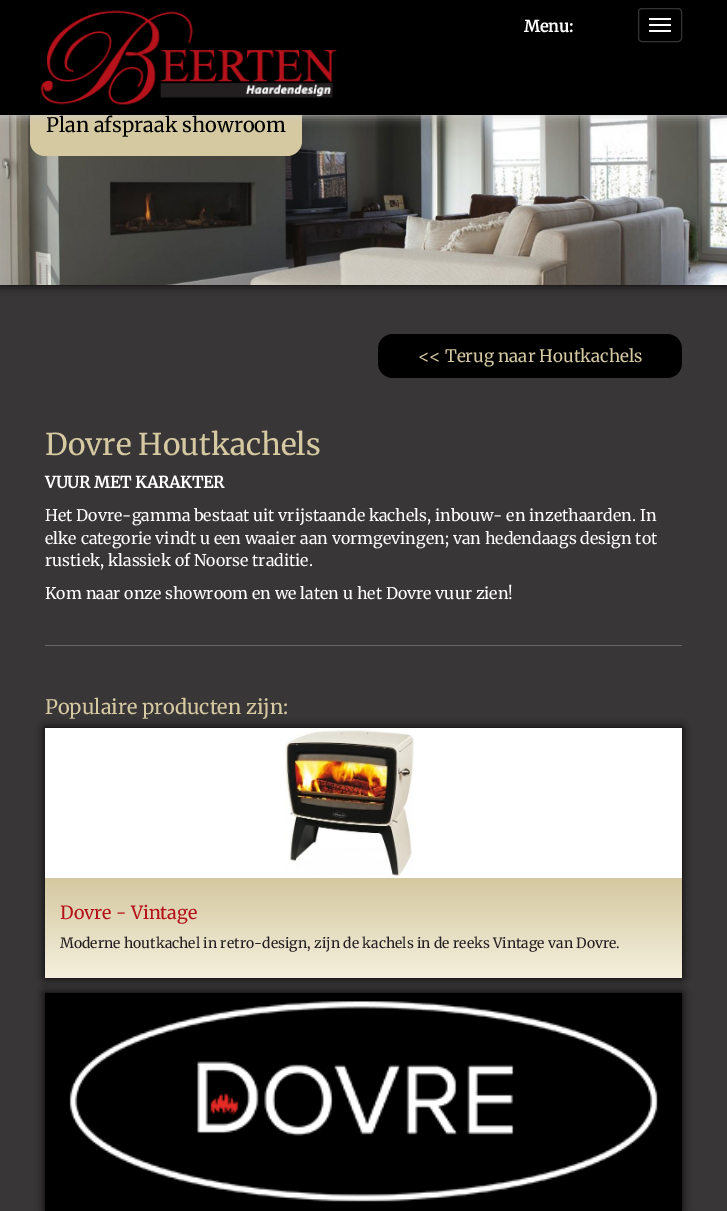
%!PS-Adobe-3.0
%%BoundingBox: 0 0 727 1211
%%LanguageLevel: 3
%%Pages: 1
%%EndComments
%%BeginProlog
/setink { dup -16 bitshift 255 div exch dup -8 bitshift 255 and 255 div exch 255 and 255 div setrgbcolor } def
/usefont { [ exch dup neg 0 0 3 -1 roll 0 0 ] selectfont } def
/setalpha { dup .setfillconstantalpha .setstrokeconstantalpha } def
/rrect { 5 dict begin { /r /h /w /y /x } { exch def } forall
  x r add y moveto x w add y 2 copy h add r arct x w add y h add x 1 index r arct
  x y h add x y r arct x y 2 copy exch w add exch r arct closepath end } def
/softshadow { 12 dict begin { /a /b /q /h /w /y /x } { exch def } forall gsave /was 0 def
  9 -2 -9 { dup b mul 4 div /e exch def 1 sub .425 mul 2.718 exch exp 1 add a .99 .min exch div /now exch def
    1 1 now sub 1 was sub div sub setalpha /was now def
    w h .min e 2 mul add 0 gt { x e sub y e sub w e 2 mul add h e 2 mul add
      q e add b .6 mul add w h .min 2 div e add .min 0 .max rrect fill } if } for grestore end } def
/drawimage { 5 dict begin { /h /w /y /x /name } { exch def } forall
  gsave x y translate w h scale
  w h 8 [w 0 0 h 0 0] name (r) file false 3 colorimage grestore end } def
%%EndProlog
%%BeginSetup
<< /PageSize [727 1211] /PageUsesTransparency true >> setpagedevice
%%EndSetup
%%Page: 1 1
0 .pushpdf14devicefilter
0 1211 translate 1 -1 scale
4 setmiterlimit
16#393637 setink
0 0 727 1211 rectfill
16#000000 setink
0 115 727 170 0 5 1 softshadow
(img2.raw) 0 115 727 170 drawimage
16#D5C9A1 setink
30 95 272 61 15 rrect fill
16#CCCCCC setink
0 0 727 115 0 5 1 softshadow
16#000000 setink
0 0 727 115 rectfill
(img1.raw) 40 10 297 95 drawimage
/Merriweather-Bold 16 usefont
16#FFFFFF setink
524 32 moveto (Menu:) show
16#333333 setink
638.5 8.5 43 33 3.5 rrect stroke
16#FFFFFF setink
649 18 22 2 1 rrect fill
649 24 22 2 1 rrect fill
649 30 22 2 1 rrect fill
/Merriweather-Light 20 usefont
16#000000 setink
46 132 moveto (Plan afspraak showroom) show
378 334 304 44 15 rrect fill
/Merriweather-Light 17 usefont
16#D5C9A1 setink
418 362 moveto (<< Terug naar Houtkachels) show
/Merriweather-Light 30 usefont
45 455 moveto (Dovre Houtkachels) show
/Merriweather-Bold 16 usefont
16#FFFFFF setink
45 488 moveto (VUUR MET KARAKTER) show
/Merriweather-Light 16 usefont
[
    [(Het Dovre-gamma bestaat uit vrijstaande kachels, inbouw- en inzethaarden. In) 45 521]
    [(elke categorie vindt u een waaier aan vormgevingen; van hedendaags design tot) 45 544]
    [(rustiek, klassiek of Noorse traditie.) 45 566]
    [(Kom naar onze showroom en we laten u het Dovre vuur zien!) 45 599]
] { aload pop moveto show } forall
16#666666 setink
45 645 637 1 rectfill
/Merriweather-Light 20 usefont
16#D5C9A1 setink
45 714 moveto (Populaire producten zijn:) show
16#000000 setink
45 728 637 250 0 5 1 softshadow
16#FFFFFF setink
45 728 637 150 rectfill
(img3.raw) 285 728 129 149 drawimage
gsave 45 878 moveto 682 878 lineto 682 978 lineto 45 978 lineto closepath clip newpath
<< /ShadingType 2 /ColorSpace /DeviceRGB /Coords [364 878 364 978] /Extend [true true] /Function << /FunctionType 2 /Domain [0 1] /C0 [0.831 0.784 0.627] /C1 [0.961 0.941 0.871] /N 1 >> >> shfill grestore
/Merriweather-Light 18 usefont
16#B5121B setink
60 919 moveto (Dovre - Vintage) show
/Merriweather-Light 14 usefont
16#231F20 setink
60 948 moveto (Moderne houtkachel in retro-design, zijn de kachels in de reeks Vintage van Dovre.) show
16#000000 setink
45 993 637 218 0 5 1 softshadow
(img4.raw) 45 993 637 218 drawimage
.poppdf14devicefilter showpage
%%EOF
